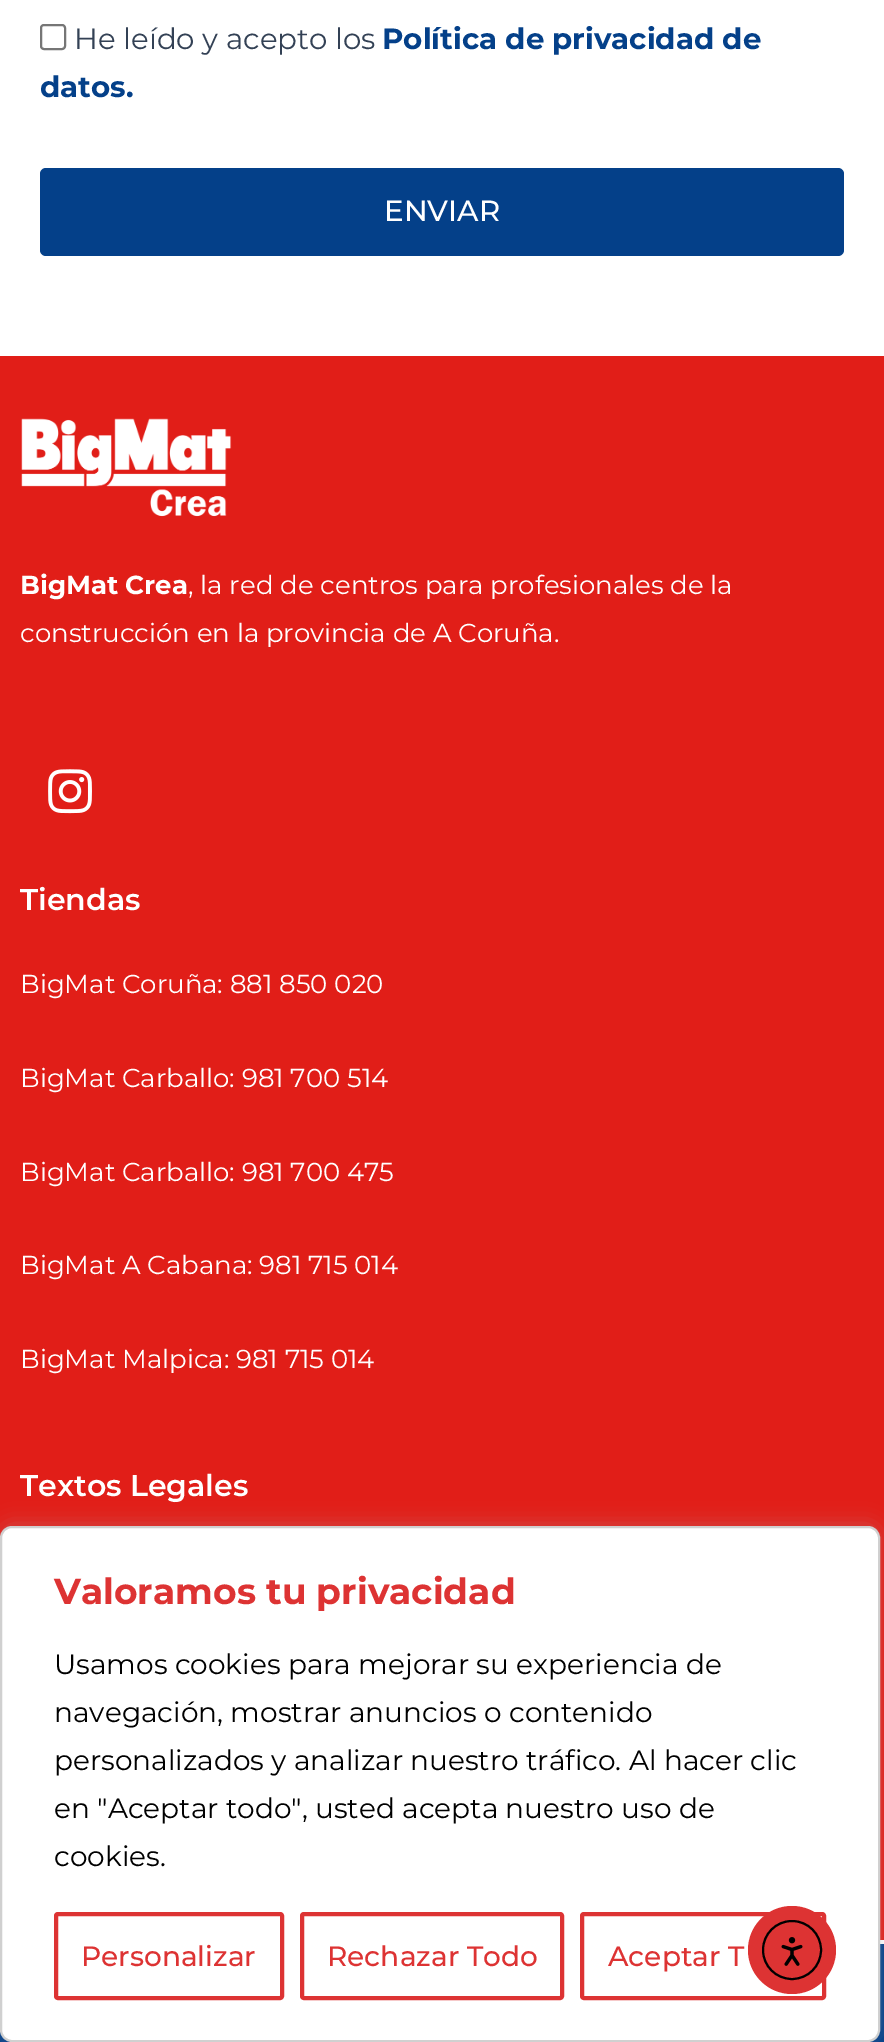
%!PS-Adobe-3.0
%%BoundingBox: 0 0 884 2042
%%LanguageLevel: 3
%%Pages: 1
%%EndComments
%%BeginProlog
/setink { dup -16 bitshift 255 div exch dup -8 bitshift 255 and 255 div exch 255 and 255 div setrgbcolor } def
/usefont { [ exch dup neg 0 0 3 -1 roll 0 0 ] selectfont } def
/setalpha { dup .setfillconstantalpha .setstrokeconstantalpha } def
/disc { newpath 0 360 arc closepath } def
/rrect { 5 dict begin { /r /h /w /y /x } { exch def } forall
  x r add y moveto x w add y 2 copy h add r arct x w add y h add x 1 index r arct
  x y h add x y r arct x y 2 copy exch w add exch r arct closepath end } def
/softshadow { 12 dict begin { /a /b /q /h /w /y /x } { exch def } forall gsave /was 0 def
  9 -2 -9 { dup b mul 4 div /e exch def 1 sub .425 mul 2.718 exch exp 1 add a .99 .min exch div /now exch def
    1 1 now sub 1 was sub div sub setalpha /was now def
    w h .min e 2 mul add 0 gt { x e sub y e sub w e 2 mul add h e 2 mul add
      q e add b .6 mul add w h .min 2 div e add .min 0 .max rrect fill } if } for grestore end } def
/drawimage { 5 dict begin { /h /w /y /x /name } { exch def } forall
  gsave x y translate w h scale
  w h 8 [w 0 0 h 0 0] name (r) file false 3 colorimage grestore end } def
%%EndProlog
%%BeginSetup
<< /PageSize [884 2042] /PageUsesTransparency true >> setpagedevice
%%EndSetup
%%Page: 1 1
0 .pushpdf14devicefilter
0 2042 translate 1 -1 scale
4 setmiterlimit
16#FFFFFF setink
0 0 884 2042 rectfill
16#767676 setink
2 setlinewidth
41 25 24 24 3 rrect stroke
/Montserrat-Regular 29.25 usefont
16#334155 setink
74 49 moveto (He leído y acepto los) show
/Montserrat-Bold 29.25 usefont
16#044089 setink
382 49 moveto (Política de privacidad de) show
40 97 moveto (datos.) show
40 168 804 88 6 rrect fill
/Montserrat-Medium 29.25 usefont
16#FFFFFF setink
384 221 moveto (ENVIAR) show
16#E11E18 setink
0 356 884 1584 rectfill
(img1.raw) 21 418 211 99 drawimage
/Montserrat-Bold 26 usefont
16#FFFFFF setink
20 594 moveto (BigMat Crea) show
/Montserrat-Regular 26 usefont
188 594 moveto (, la red de centros para profesionales de la) show
20 642 moveto (construcción en la provincia de A Coruña.) show
(img2.raw) 48 769 44 45 drawimage
/Montserrat-SemiBold 30 usefont
20 910 moveto (Tiendas) show
/Montserrat-Regular 26 usefont
[
    [(BigMat Coruña: 881 850 020) 20 993]
    [(BigMat Carballo: 981 700 514) 20 1087]
    [(BigMat Carballo: 981 700 475) 20 1181]
    [(BigMat A Cabana: 981 715 014) 20 1274]
    [(BigMat Malpica: 981 715 014) 20 1368]
] { aload pop moveto show } forall
/Montserrat-SemiBold 30 usefont
20 1496 moveto (Textos Legales) show
16#044089 setink
0 1944 884 98 rectfill
16#ACABAB setink
0 1524 880 516 12 10 0.3 softshadow
16#FFFFFF setink
1 1527 878 514 11 rrect gsave fill grestore
16#D0D0D0 setink
stroke
/Montserrat-Bold 36 usefont
16#DD3333 setink
54 1604 moveto (Valoramos tu privacidad) show
/Montserrat-Regular 28 usefont
16#000000 setink
[
    [(Usamos cookies para mejorar su experiencia de) 54 1674]
    [(navegación, mostrar anuncios o contenido) 54 1722]
    [(personalizados y analizar nuestro tráfico. Al hacer clic) 54 1770]
    [(en "Aceptar todo", usted acepta nuestro uso de) 54 1818]
    [(cookies.) 54 1866]
] { aload pop moveto show } forall
16#DD3333 setink
4 setlinewidth
56 1914 226 84 2 rrect stroke
/Montserrat-Medium 28 usefont
81 1966 moveto (Personalizar) show
302 1914 260 84 2 rrect stroke
327 1966 moveto (Rechazar Todo) show
582 1914 242 84 2 rrect stroke
608 1966 moveto (Aceptar T) show
792 1950 44 disc fill
16#000000 setink
2 setlinewidth
792 1950 29 disc stroke
(img3.raw) 781 1937 22 29 drawimage
.poppdf14devicefilter showpage
%%EOF
